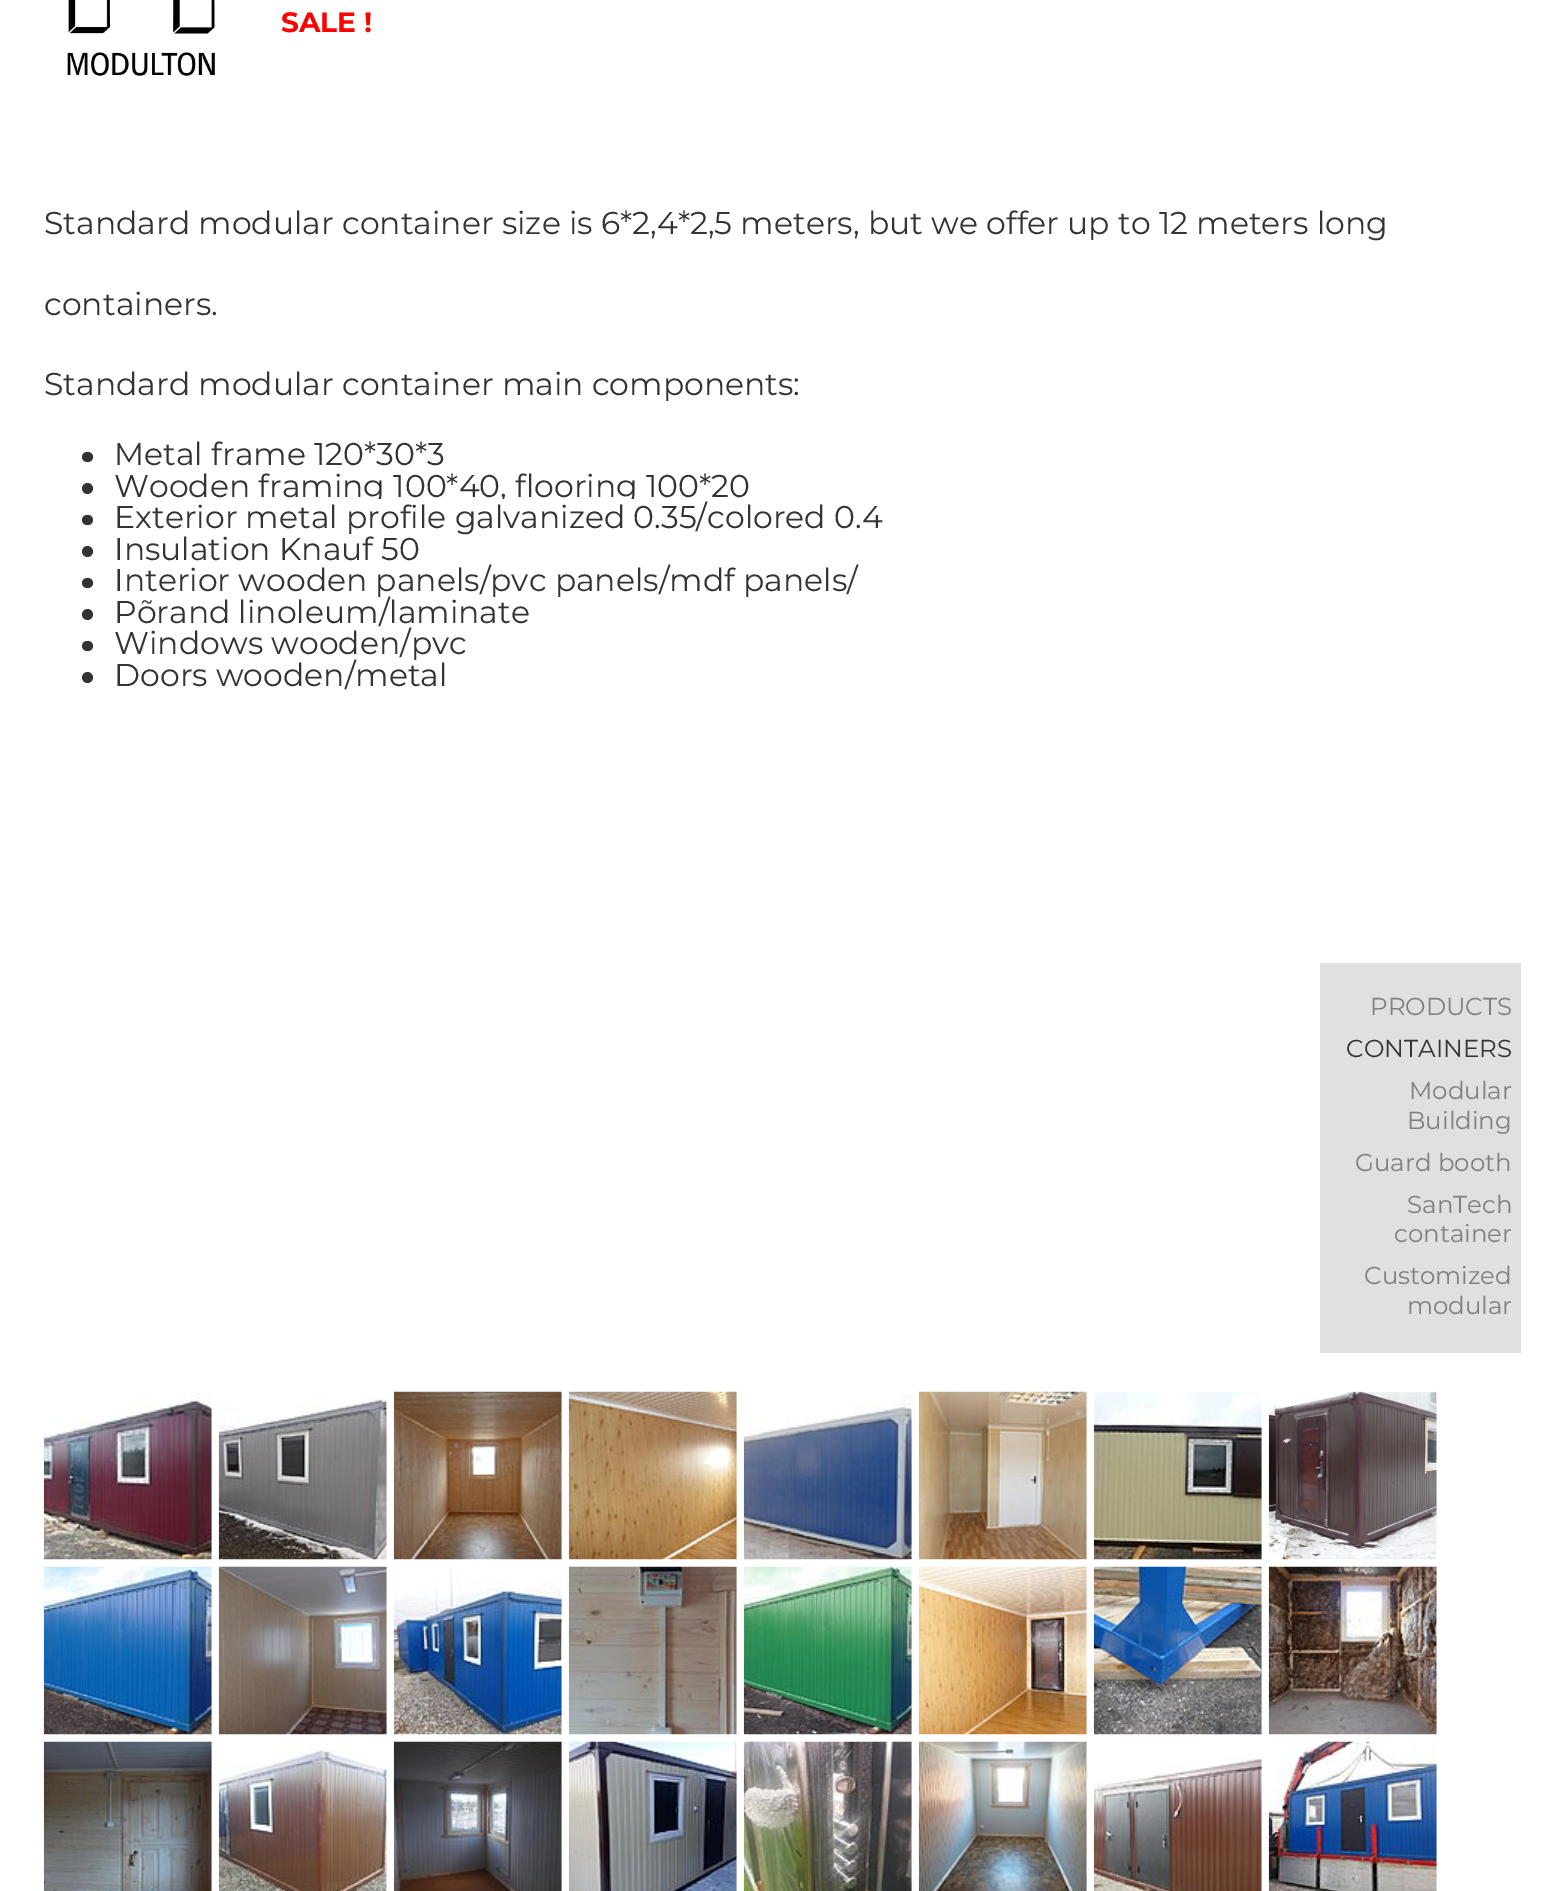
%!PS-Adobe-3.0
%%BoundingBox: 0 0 1563 1891
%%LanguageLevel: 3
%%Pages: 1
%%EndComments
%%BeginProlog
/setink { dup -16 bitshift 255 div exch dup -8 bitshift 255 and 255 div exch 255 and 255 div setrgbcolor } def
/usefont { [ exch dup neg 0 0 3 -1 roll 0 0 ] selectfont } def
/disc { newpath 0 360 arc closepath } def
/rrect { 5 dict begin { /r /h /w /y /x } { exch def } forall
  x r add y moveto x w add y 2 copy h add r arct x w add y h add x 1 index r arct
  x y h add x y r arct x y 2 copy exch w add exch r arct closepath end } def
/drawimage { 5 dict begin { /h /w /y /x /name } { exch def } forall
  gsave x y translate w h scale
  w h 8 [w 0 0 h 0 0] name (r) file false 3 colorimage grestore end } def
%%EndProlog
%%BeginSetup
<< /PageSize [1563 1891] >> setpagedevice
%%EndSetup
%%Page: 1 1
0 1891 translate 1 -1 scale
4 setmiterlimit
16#FFFFFF setink
0 0 1563 1891 rectfill
(img1.raw) 67 0 148 76 drawimage
/Montserrat-Bold 28 usefont
16#FF0000 setink
281 32 moveto (SALE !) show
/Montserrat-Regular 31.5 usefont
16#333333 setink
[
    [(Standard modular container size is 6*2,4*2,5 meters, but we offer up to 12 meters long) 44 234]
    [(containers.) 44 315]
    [(Standard modular container main components:) 44 395]
] { aload pop moveto show } forall
82 452 11 10 5 rrect fill
114 465 moveto (Metal frame 120*30*3) show
87.5 488.5 5.5 disc fill
114 497 moveto (Wooden framing 100*40, flooring 100*20) show
82 515 11 10 5 rrect fill
16#FFFFFF setink
365 499 269 5 rectfill
16#333333 setink
114 528 moveto (Exterior metal profile galvanized 0.35/colored 0.4) show
87.5 551.5 5.5 disc fill
114 560 moveto (Insulation Knauf 50) show
82 578 11 10 5 rrect fill
114 591 moveto (Interior wooden panels/pvc panels/mdf panels/) show
87.5 614.5 5.5 disc fill
114 623 moveto (Põrand linoleum/laminate) show
82 641 11 10 5 rrect fill
114 654 moveto (Windows wooden/pvc) show
87.5 677.5 5.5 disc fill
114 686 moveto (Doors wooden/metal) show
16#E0E0E0 setink
1320 963 201 390 rectfill
/Montserrat-Regular 24.5 usefont
16#7F7F7F setink
1370 1015 moveto (PRODUCTS) show
16#333333 setink
1346 1057 moveto (CONTAINERS) show
16#7F7F7F setink
[
    [(Modular) 1409 1099]
    [(Building) 1407 1129]
    [(Guard booth) 1355 1171]
    [(SanTech) 1407 1213]
    [(container) 1394 1242]
    [(Customized) 1364 1284]
    [(modular) 1407 1314]
] { aload pop moveto show } forall
(img2.raw) 43 1392 169 168 drawimage
(img3.raw) 218 1397 169 163 drawimage
(img4.raw) 393 1391 169 169 drawimage
(img5.raw) 568 1391 169 169 drawimage
(img6.raw) 743 1394 169 166 drawimage
(img7.raw) 918 1391 169 169 drawimage
(img8.raw) 1093 1391 169 169 drawimage
(img9.raw) 1268 1391 169 169 drawimage
(img10.raw) 43 1566 169 169 drawimage
(img11.raw) 218 1566 169 169 drawimage
(img12.raw) 393 1567 169 168 drawimage
(img13.raw) 568 1566 169 169 drawimage
(img14.raw) 743 1566 169 169 drawimage
(img15.raw) 918 1566 169 169 drawimage
(img16.raw) 1093 1566 169 169 drawimage
(img17.raw) 1268 1566 169 169 drawimage
(img18.raw) 43 1741 169 150 drawimage
(img19.raw) 218 1743 169 148 drawimage
(img20.raw) 393 1741 169 150 drawimage
(img21.raw) 568 1741 169 150 drawimage
(img22.raw) 743 1741 169 150 drawimage
(img23.raw) 918 1741 169 150 drawimage
(img24.raw) 1093 1756 169 135 drawimage
(img25.raw) 1268 1741 169 150 drawimage
showpage
%%EOF
